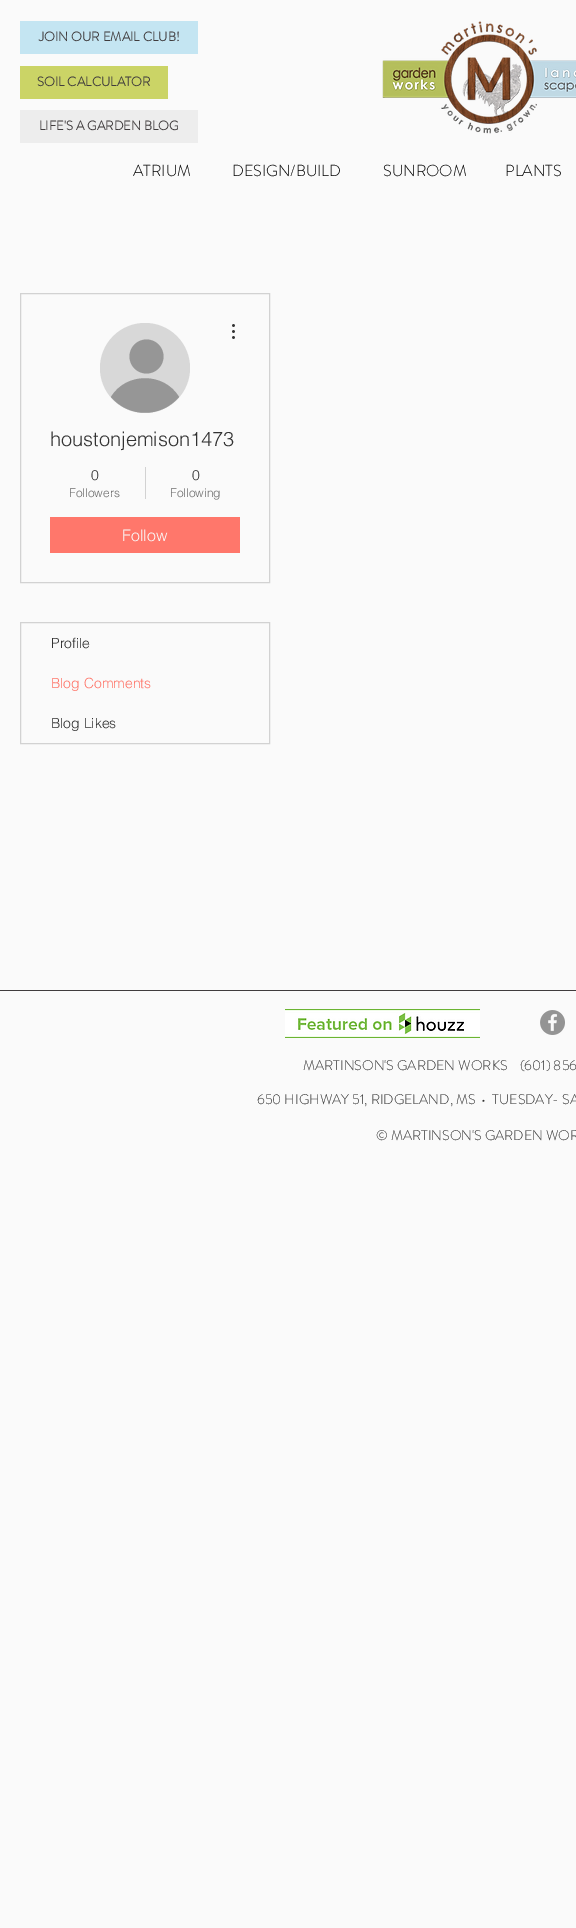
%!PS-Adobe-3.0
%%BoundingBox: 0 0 576 1928
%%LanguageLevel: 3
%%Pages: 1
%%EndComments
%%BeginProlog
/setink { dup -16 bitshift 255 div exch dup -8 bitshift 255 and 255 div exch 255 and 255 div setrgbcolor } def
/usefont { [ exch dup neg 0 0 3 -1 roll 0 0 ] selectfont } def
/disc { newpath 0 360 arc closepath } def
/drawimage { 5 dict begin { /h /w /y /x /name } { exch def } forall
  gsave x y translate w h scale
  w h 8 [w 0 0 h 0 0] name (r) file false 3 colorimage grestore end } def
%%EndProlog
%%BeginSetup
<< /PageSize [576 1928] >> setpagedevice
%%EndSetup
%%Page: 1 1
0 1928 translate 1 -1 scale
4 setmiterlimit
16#FAFAFA setink
0 0 576 1928 rectfill
16#C4E5F2 setink
20 21 178 33 rectfill
/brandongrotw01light-Bold 13 usefont
16#403C3D setink
39 41 moveto (JOIN OUR EMAIL CLUB!) show
(img1.raw) 382 21 194 113 drawimage
16#CBD466 setink
20 66 148 33 rectfill
16#403C3D setink
37 86 moveto (SOIL CALCULATOR) show
16#EDEDED setink
20 110 178 33 rectfill
16#403C3D setink
39 130 moveto (LIFE'S A GARDEN BLOG) show
/brandongrotw01light-Light 16 usefont
16#000000 setink
[
    [(ATRIUM) 133 176]
    [(DESIGN/BUILD) 232 176]
    [(SUNROOM) 383 176]
    [(PLANTS) 505 176]
] { aload pop moveto show } forall
16#D2D2D2 setink
20.5 293.5 249 289 rectstroke
16#D8D8D8 setink
145 368 45 disc fill
16#969696 setink
146.5 356.5 17 disc fill
179 397 moveto 161 418 129 418 111 397 curveto 126 372 164 372 179 397 curveto closepath fill
(img2.raw) 232 324 3 15 drawimage
/helvetica-Light 20 usefont
16#323232 setink
50 446 moveto (houstonjemison1473) show
/helvetica-Light 14 usefont
91 480 moveto (0) show
/helvetica-Light 12 usefont
16#6E6E6E setink
69 497 moveto (Followers) show
16#D2D2D2 setink
145 467 1 32 rectfill
/helvetica-Light 14 usefont
16#323232 setink
192 480 moveto (0) show
/helvetica-Light 12 usefont
16#6E6E6E setink
170 497 moveto (Following) show
16#FF776B setink
50 517 190 36 rectfill
/helvetica-Light 16 usefont
16#FAFAFA setink
122 541 moveto (Follow) show
16#D2D2D2 setink
20.5 622.5 249 121 rectstroke
/helvetica-Light 14 usefont
16#323232 setink
51 648 moveto (Profile) show
16#FF776B setink
51 688 moveto (Blog Comments) show
16#323232 setink
51 728 moveto (Blog Likes) show
16#403C3D setink
0 990 576 1 rectfill
(img3.raw) 285 1009 195 29 drawimage
(img4.raw) 540 1010 25 25 drawimage
/brandongrotw01light-Light 14 usefont
16#323232 setink
[
    [(MARTINSON'S GARDEN WORKS    \(601\) 856) 303 1070]
    [(650 HIGHWAY 51, RIDGELAND, MS  •  TUESDAY- SA) 257 1104]
    [(© MARTINSON'S GARDEN WOR) 376 1140]
] { aload pop moveto show } forall
showpage
%%EOF
